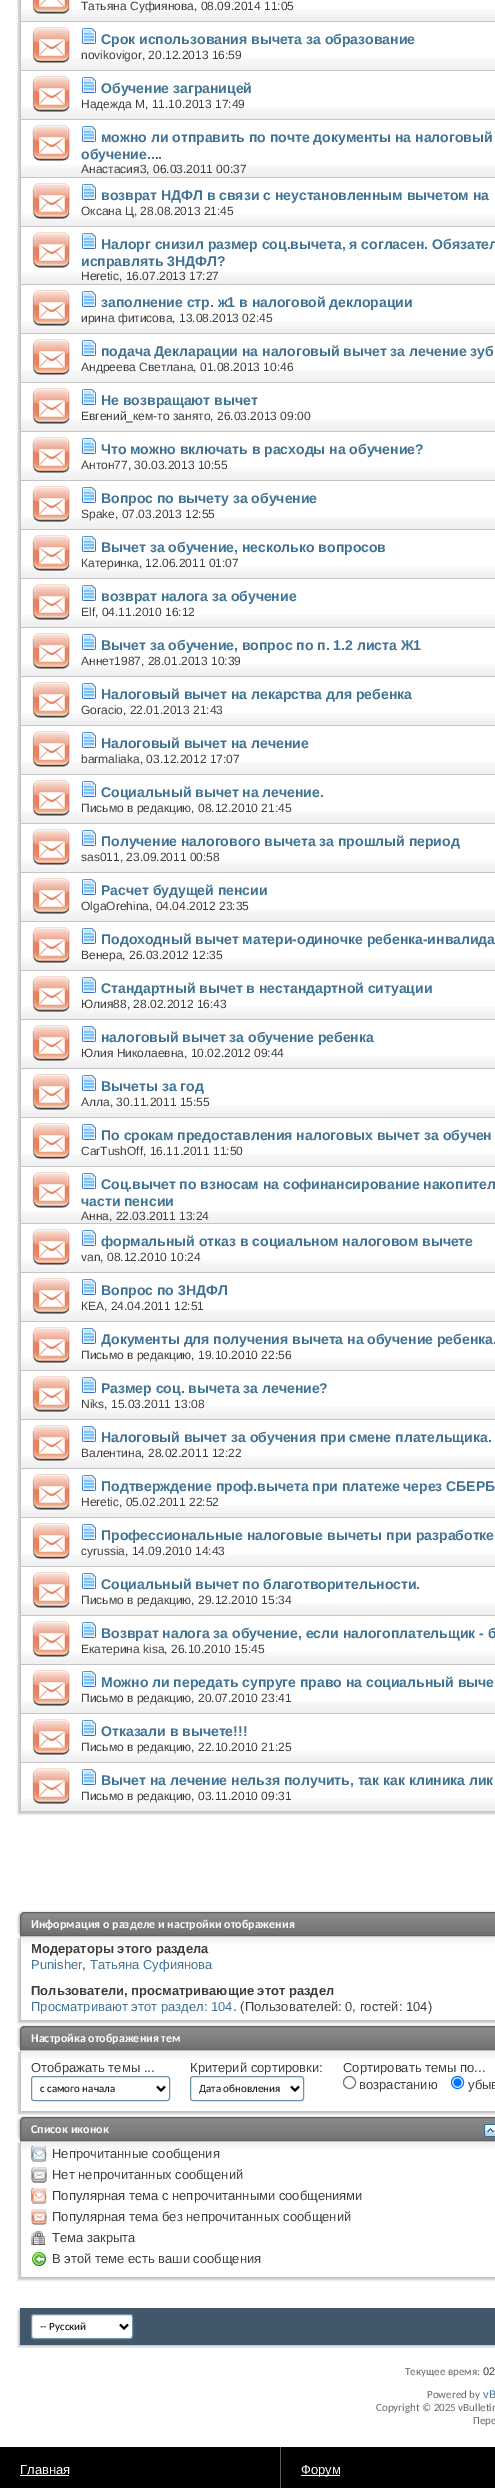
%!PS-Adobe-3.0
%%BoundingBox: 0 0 495 2488
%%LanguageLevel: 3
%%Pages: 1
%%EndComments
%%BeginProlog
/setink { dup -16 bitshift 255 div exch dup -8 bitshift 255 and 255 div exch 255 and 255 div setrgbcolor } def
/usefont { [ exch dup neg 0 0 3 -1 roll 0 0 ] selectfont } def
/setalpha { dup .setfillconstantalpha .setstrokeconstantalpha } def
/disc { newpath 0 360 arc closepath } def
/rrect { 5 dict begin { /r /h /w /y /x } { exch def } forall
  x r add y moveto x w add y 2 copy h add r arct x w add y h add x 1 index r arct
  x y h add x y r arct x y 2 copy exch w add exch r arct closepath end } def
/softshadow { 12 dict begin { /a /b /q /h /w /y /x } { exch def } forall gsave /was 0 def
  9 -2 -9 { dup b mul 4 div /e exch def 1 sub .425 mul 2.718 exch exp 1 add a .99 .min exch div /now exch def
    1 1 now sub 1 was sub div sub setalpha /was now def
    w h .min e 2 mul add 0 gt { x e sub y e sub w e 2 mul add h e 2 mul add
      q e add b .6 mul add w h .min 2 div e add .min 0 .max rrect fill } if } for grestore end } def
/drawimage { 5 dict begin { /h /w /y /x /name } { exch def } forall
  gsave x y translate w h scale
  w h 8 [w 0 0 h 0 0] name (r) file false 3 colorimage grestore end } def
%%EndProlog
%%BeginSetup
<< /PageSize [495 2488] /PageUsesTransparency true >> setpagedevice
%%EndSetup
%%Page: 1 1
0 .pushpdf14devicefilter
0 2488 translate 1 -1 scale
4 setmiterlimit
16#FFFFFF setink
0 0 495 2488 rectfill
gsave
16 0 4 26 rectclip
16#C8C8C8 setink
18 -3 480 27 0 1 1 softshadow
grestore
(img1.raw) 21 9 474 12 drawimage
16#C4C4C4 setink
20 21 475 1 rectfill
20 0 1 22 rectfill
(img2.raw) 32 0 38 14 drawimage
/LiberationSans-Regular 12 usefont
16#3E3E3E setink
81 10 moveto (Татьяна Суфиянова, 08.09.2014 11:05) show
16#C8C8C8 setink
18 24 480 49 0 1 1 softshadow
16#FFFFFF setink
21 22 474 48 rectfill
(img1.raw) 21 58 474 12 drawimage
16#C4C4C4 setink
20 70 475 1 rectfill
20 22 1 49 rectfill
(img3.raw) 32 27 38 36 drawimage
(img4.raw) 82 28 14 16 drawimage
/LiberationSans-Bold 14 usefont
16#417394 setink
101 44 moveto (Срок использования вычета за образование) show
/LiberationSans-Regular 12 usefont
16#3E3E3E setink
81 59 moveto (novikovigor, 20.12.2013 16:59) show
16#C8C8C8 setink
18 73 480 49 0 1 1 softshadow
16#FFFFFF setink
21 71 474 48 rectfill
(img1.raw) 21 107 474 12 drawimage
16#C4C4C4 setink
20 119 475 1 rectfill
20 71 1 49 rectfill
(img3.raw) 32 76 38 36 drawimage
(img4.raw) 82 77 14 16 drawimage
/LiberationSans-Bold 14 usefont
16#417394 setink
101 93 moveto (Обучение заграницей) show
/LiberationSans-Regular 12 usefont
16#3E3E3E setink
81 108 moveto (Надежда М, 11.10.2013 17:49) show
16#C8C8C8 setink
18 122 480 58 0 1 1 softshadow
16#FFFFFF setink
21 120 474 57 rectfill
(img1.raw) 21 165 474 12 drawimage
16#C4C4C4 setink
20 177 475 1 rectfill
20 120 1 58 rectfill
(img5.raw) 32 125 38 36 drawimage
(img4.raw) 82 126 14 16 drawimage
/LiberationSans-Bold 14 usefont
16#417394 setink
101 142 moveto (можно ли отправить по почте документы на налоговый) show
81 159 moveto (обучение....) show
/LiberationSans-Regular 12 usefont
16#3E3E3E setink
81 173 moveto (Анастасия3, 06.03.2011 00:37) show
16#C8C8C8 setink
18 180 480 49 0 1 1 softshadow
16#FFFFFF setink
21 178 474 48 rectfill
(img1.raw) 21 214 474 12 drawimage
16#C4C4C4 setink
20 226 475 1 rectfill
20 178 1 49 rectfill
(img3.raw) 32 183 38 36 drawimage
(img4.raw) 82 184 14 16 drawimage
/LiberationSans-Bold 14 usefont
16#417394 setink
101 200 moveto (возврат НДФЛ в связи с неустановленным вычетом на) show
/LiberationSans-Regular 12 usefont
16#3E3E3E setink
81 215 moveto (Оксана Ц, 28.08.2013 21:45) show
16#C8C8C8 setink
18 229 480 58 0 1 1 softshadow
16#FFFFFF setink
21 227 474 57 rectfill
(img1.raw) 21 272 474 12 drawimage
16#C4C4C4 setink
20 284 475 1 rectfill
20 227 1 58 rectfill
(img5.raw) 32 232 38 36 drawimage
(img4.raw) 82 233 14 16 drawimage
/LiberationSans-Bold 14 usefont
16#417394 setink
101 249 moveto (Налорг снизил размер соц.вычета, я согласен. Обязател) show
81 266 moveto (исправлять 3НДФЛ?) show
/LiberationSans-Regular 12 usefont
16#3E3E3E setink
81 280 moveto (Heretic, 16.07.2013 17:27) show
16#C8C8C8 setink
18 287 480 49 0 1 1 softshadow
16#FFFFFF setink
21 285 474 48 rectfill
(img1.raw) 21 321 474 12 drawimage
16#C4C4C4 setink
20 333 475 1 rectfill
20 285 1 49 rectfill
(img3.raw) 32 290 38 36 drawimage
(img4.raw) 82 291 14 16 drawimage
/LiberationSans-Bold 14 usefont
16#417394 setink
101 307 moveto (заполнение стр. ж1 в налоговой деклорации) show
/LiberationSans-Regular 12 usefont
16#3E3E3E setink
81 322 moveto (ирина фитисова, 13.08.2013 02:45) show
16#C8C8C8 setink
18 336 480 49 0 1 1 softshadow
16#FFFFFF setink
21 334 474 48 rectfill
(img1.raw) 21 370 474 12 drawimage
16#C4C4C4 setink
20 382 475 1 rectfill
20 334 1 49 rectfill
(img3.raw) 32 339 38 36 drawimage
(img4.raw) 82 340 14 16 drawimage
/LiberationSans-Bold 14 usefont
16#417394 setink
101 356 moveto (подача Декларации на налоговый вычет за лечение зуб) show
/LiberationSans-Regular 12 usefont
16#3E3E3E setink
81 371 moveto (Андреева Светлана, 01.08.2013 10:46) show
16#C8C8C8 setink
18 385 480 49 0 1 1 softshadow
16#FFFFFF setink
21 383 474 48 rectfill
(img1.raw) 21 419 474 12 drawimage
16#C4C4C4 setink
20 431 475 1 rectfill
20 383 1 49 rectfill
(img3.raw) 32 388 38 36 drawimage
(img4.raw) 82 389 14 16 drawimage
/LiberationSans-Bold 14 usefont
16#417394 setink
101 405 moveto (Не возвращают вычет) show
/LiberationSans-Regular 12 usefont
16#3E3E3E setink
81 420 moveto (Евгений_кем-то занято, 26.03.2013 09:00) show
16#C8C8C8 setink
18 434 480 49 0 1 1 softshadow
16#FFFFFF setink
21 432 474 48 rectfill
(img1.raw) 21 468 474 12 drawimage
16#C4C4C4 setink
20 480 475 1 rectfill
20 432 1 49 rectfill
(img3.raw) 32 437 38 36 drawimage
(img4.raw) 82 438 14 16 drawimage
/LiberationSans-Bold 14 usefont
16#417394 setink
101 454 moveto (Что можно включать в расходы на обучение?) show
/LiberationSans-Regular 12 usefont
16#3E3E3E setink
81 469 moveto (Антон77, 30.03.2013 10:55) show
16#C8C8C8 setink
18 483 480 49 0 1 1 softshadow
16#FFFFFF setink
21 481 474 48 rectfill
(img1.raw) 21 517 474 12 drawimage
16#C4C4C4 setink
20 529 475 1 rectfill
20 481 1 49 rectfill
(img3.raw) 32 486 38 36 drawimage
(img4.raw) 82 487 14 16 drawimage
/LiberationSans-Bold 14 usefont
16#417394 setink
101 503 moveto (Вопрос по вычету за обучение) show
/LiberationSans-Regular 12 usefont
16#3E3E3E setink
81 518 moveto (Spake, 07.03.2013 12:55) show
16#C8C8C8 setink
18 532 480 49 0 1 1 softshadow
16#FFFFFF setink
21 530 474 48 rectfill
(img1.raw) 21 566 474 12 drawimage
16#C4C4C4 setink
20 578 475 1 rectfill
20 530 1 49 rectfill
(img3.raw) 32 535 38 36 drawimage
(img4.raw) 82 536 14 16 drawimage
/LiberationSans-Bold 14 usefont
16#417394 setink
101 552 moveto (Вычет за обучение, несколько вопросов) show
/LiberationSans-Regular 12 usefont
16#3E3E3E setink
81 567 moveto (Катеринка, 12.06.2011 01:07) show
16#C8C8C8 setink
18 581 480 49 0 1 1 softshadow
16#FFFFFF setink
21 579 474 48 rectfill
(img1.raw) 21 615 474 12 drawimage
16#C4C4C4 setink
20 627 475 1 rectfill
20 579 1 49 rectfill
(img3.raw) 32 584 38 36 drawimage
(img4.raw) 82 585 14 16 drawimage
/LiberationSans-Bold 14 usefont
16#417394 setink
101 601 moveto (возврат налога за обучение) show
/LiberationSans-Regular 12 usefont
16#3E3E3E setink
81 616 moveto (Elf, 04.11.2010 16:12) show
16#C8C8C8 setink
18 630 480 49 0 1 1 softshadow
16#FFFFFF setink
21 628 474 48 rectfill
(img1.raw) 21 664 474 12 drawimage
16#C4C4C4 setink
20 676 475 1 rectfill
20 628 1 49 rectfill
(img3.raw) 32 633 38 36 drawimage
(img4.raw) 82 634 14 16 drawimage
/LiberationSans-Bold 14 usefont
16#417394 setink
101 650 moveto (Вычет за обучение, вопрос по п. 1.2 листа Ж1) show
/LiberationSans-Regular 12 usefont
16#3E3E3E setink
81 665 moveto (Аннет1987, 28.01.2013 10:39) show
16#C8C8C8 setink
18 679 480 49 0 1 1 softshadow
16#FFFFFF setink
21 677 474 48 rectfill
(img1.raw) 21 713 474 12 drawimage
16#C4C4C4 setink
20 725 475 1 rectfill
20 677 1 49 rectfill
(img3.raw) 32 682 38 36 drawimage
(img4.raw) 82 683 14 16 drawimage
/LiberationSans-Bold 14 usefont
16#417394 setink
101 699 moveto (Налоговый вычет на лекарства для ребенка) show
/LiberationSans-Regular 12 usefont
16#3E3E3E setink
81 714 moveto (Goracio, 22.01.2013 21:43) show
16#C8C8C8 setink
18 728 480 49 0 1 1 softshadow
16#FFFFFF setink
21 726 474 48 rectfill
(img1.raw) 21 762 474 12 drawimage
16#C4C4C4 setink
20 774 475 1 rectfill
20 726 1 49 rectfill
(img3.raw) 32 731 38 36 drawimage
(img4.raw) 82 732 14 16 drawimage
/LiberationSans-Bold 14 usefont
16#417394 setink
101 748 moveto (Налоговый вычет на лечение) show
/LiberationSans-Regular 12 usefont
16#3E3E3E setink
81 763 moveto (barmaliaka, 03.12.2012 17:07) show
16#C8C8C8 setink
18 777 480 49 0 1 1 softshadow
16#FFFFFF setink
21 775 474 48 rectfill
(img1.raw) 21 811 474 12 drawimage
16#C4C4C4 setink
20 823 475 1 rectfill
20 775 1 49 rectfill
(img3.raw) 32 780 38 36 drawimage
(img4.raw) 82 781 14 16 drawimage
/LiberationSans-Bold 14 usefont
16#417394 setink
101 797 moveto (Социальный вычет на лечение.) show
/LiberationSans-Regular 12 usefont
16#3E3E3E setink
81 812 moveto (Письмо в редакцию, 08.12.2010 21:45) show
16#C8C8C8 setink
18 826 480 49 0 1 1 softshadow
16#FFFFFF setink
21 824 474 48 rectfill
(img1.raw) 21 860 474 12 drawimage
16#C4C4C4 setink
20 872 475 1 rectfill
20 824 1 49 rectfill
(img3.raw) 32 829 38 36 drawimage
(img4.raw) 82 830 14 16 drawimage
/LiberationSans-Bold 14 usefont
16#417394 setink
101 846 moveto (Получение налогового вычета за прошлый период) show
/LiberationSans-Regular 12 usefont
16#3E3E3E setink
81 861 moveto (sas011, 23.09.2011 00:58) show
16#C8C8C8 setink
18 875 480 49 0 1 1 softshadow
16#FFFFFF setink
21 873 474 48 rectfill
(img1.raw) 21 909 474 12 drawimage
16#C4C4C4 setink
20 921 475 1 rectfill
20 873 1 49 rectfill
(img3.raw) 32 878 38 36 drawimage
(img4.raw) 82 879 14 16 drawimage
/LiberationSans-Bold 14 usefont
16#417394 setink
101 895 moveto (Расчет будущей пенсии) show
/LiberationSans-Regular 12 usefont
16#3E3E3E setink
81 910 moveto (OlgaOrehina, 04.04.2012 23:35) show
16#C8C8C8 setink
18 924 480 49 0 1 1 softshadow
16#FFFFFF setink
21 922 474 48 rectfill
(img1.raw) 21 958 474 12 drawimage
16#C4C4C4 setink
20 970 475 1 rectfill
20 922 1 49 rectfill
(img3.raw) 32 927 38 36 drawimage
(img4.raw) 82 928 14 16 drawimage
/LiberationSans-Bold 14 usefont
16#417394 setink
101 944 moveto (Подоходный вычет матери-одиночке ребенка-инвалида) show
/LiberationSans-Regular 12 usefont
16#3E3E3E setink
81 959 moveto (Венера, 26.03.2012 12:35) show
16#C8C8C8 setink
18 973 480 49 0 1 1 softshadow
16#FFFFFF setink
21 971 474 48 rectfill
(img1.raw) 21 1007 474 12 drawimage
16#C4C4C4 setink
20 1019 475 1 rectfill
20 971 1 49 rectfill
(img3.raw) 32 976 38 36 drawimage
(img4.raw) 82 977 14 16 drawimage
/LiberationSans-Bold 14 usefont
16#417394 setink
101 993 moveto (Стандартный вычет в нестандартной ситуации) show
/LiberationSans-Regular 12 usefont
16#3E3E3E setink
81 1008 moveto (Юлия88, 28.02.2012 16:43) show
16#C8C8C8 setink
18 1022 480 49 0 1 1 softshadow
16#FFFFFF setink
21 1020 474 48 rectfill
(img1.raw) 21 1056 474 12 drawimage
16#C4C4C4 setink
20 1068 475 1 rectfill
20 1020 1 49 rectfill
(img3.raw) 32 1025 38 36 drawimage
(img4.raw) 82 1026 14 16 drawimage
/LiberationSans-Bold 14 usefont
16#417394 setink
101 1042 moveto (налоговый вычет за обучение ребенка) show
/LiberationSans-Regular 12 usefont
16#3E3E3E setink
81 1057 moveto (Юлия Николаевна, 10.02.2012 09:44) show
16#C8C8C8 setink
18 1071 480 49 0 1 1 softshadow
16#FFFFFF setink
21 1069 474 48 rectfill
(img1.raw) 21 1105 474 12 drawimage
16#C4C4C4 setink
20 1117 475 1 rectfill
20 1069 1 49 rectfill
(img3.raw) 32 1074 38 36 drawimage
(img4.raw) 82 1075 14 16 drawimage
/LiberationSans-Bold 14 usefont
16#417394 setink
101 1091 moveto (Вычеты за год) show
/LiberationSans-Regular 12 usefont
16#3E3E3E setink
81 1106 moveto (Алла, 30.11.2011 15:55) show
16#C8C8C8 setink
18 1120 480 49 0 1 1 softshadow
16#FFFFFF setink
21 1118 474 48 rectfill
(img1.raw) 21 1154 474 12 drawimage
16#C4C4C4 setink
20 1166 475 1 rectfill
20 1118 1 49 rectfill
(img3.raw) 32 1123 38 36 drawimage
(img4.raw) 82 1124 14 16 drawimage
/LiberationSans-Bold 14 usefont
16#417394 setink
101 1140 moveto (По срокам предоставления налоговых вычет за обучен) show
/LiberationSans-Regular 12 usefont
16#3E3E3E setink
81 1155 moveto (CarTushOff, 16.11.2011 11:50) show
16#C8C8C8 setink
18 1169 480 57 0 1 1 softshadow
16#FFFFFF setink
21 1167 474 56 rectfill
(img1.raw) 21 1211 474 12 drawimage
16#C4C4C4 setink
20 1223 475 1 rectfill
20 1167 1 57 rectfill
(img5.raw) 32 1172 38 36 drawimage
(img4.raw) 82 1173 14 16 drawimage
/LiberationSans-Bold 14 usefont
16#417394 setink
101 1189 moveto (Соц.вычет по взносам на софинансирование накопител) show
81 1206 moveto (части пенсии) show
/LiberationSans-Regular 12 usefont
16#3E3E3E setink
81 1220 moveto (Анна, 22.03.2011 13:24) show
16#C8C8C8 setink
18 1226 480 49 0 1 1 softshadow
16#FFFFFF setink
21 1224 474 48 rectfill
(img1.raw) 21 1260 474 12 drawimage
16#C4C4C4 setink
20 1272 475 1 rectfill
20 1224 1 49 rectfill
(img3.raw) 32 1229 38 36 drawimage
(img4.raw) 82 1230 14 16 drawimage
/LiberationSans-Bold 14 usefont
16#417394 setink
101 1246 moveto (формальный отказ в социальном налоговом вычете) show
/LiberationSans-Regular 12 usefont
16#3E3E3E setink
81 1261 moveto (van, 08.12.2010 10:24) show
16#C8C8C8 setink
18 1275 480 49 0 1 1 softshadow
16#FFFFFF setink
21 1273 474 48 rectfill
(img1.raw) 21 1309 474 12 drawimage
16#C4C4C4 setink
20 1321 475 1 rectfill
20 1273 1 49 rectfill
(img3.raw) 32 1278 38 36 drawimage
(img4.raw) 82 1279 14 16 drawimage
/LiberationSans-Bold 14 usefont
16#417394 setink
101 1295 moveto (Вопрос по 3НДФЛ) show
/LiberationSans-Regular 12 usefont
16#3E3E3E setink
81 1310 moveto (КЕА, 24.04.2011 12:51) show
16#C8C8C8 setink
18 1324 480 49 0 1 1 softshadow
16#FFFFFF setink
21 1322 474 48 rectfill
(img1.raw) 21 1358 474 12 drawimage
16#C4C4C4 setink
20 1370 475 1 rectfill
20 1322 1 49 rectfill
(img3.raw) 32 1327 38 36 drawimage
(img4.raw) 82 1328 14 16 drawimage
/LiberationSans-Bold 14 usefont
16#417394 setink
101 1344 moveto (Документы для получения вычета на обучение ребенка.) show
/LiberationSans-Regular 12 usefont
16#3E3E3E setink
81 1359 moveto (Письмо в редакцию, 19.10.2010 22:56) show
16#C8C8C8 setink
18 1373 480 49 0 1 1 softshadow
16#FFFFFF setink
21 1371 474 48 rectfill
(img1.raw) 21 1407 474 12 drawimage
16#C4C4C4 setink
20 1419 475 1 rectfill
20 1371 1 49 rectfill
(img3.raw) 32 1376 38 36 drawimage
(img4.raw) 82 1377 14 16 drawimage
/LiberationSans-Bold 14 usefont
16#417394 setink
101 1393 moveto (Размер соц. вычета за лечение?) show
/LiberationSans-Regular 12 usefont
16#3E3E3E setink
81 1408 moveto (Niks, 15.03.2011 13:08) show
16#C8C8C8 setink
18 1422 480 49 0 1 1 softshadow
16#FFFFFF setink
21 1420 474 48 rectfill
(img1.raw) 21 1456 474 12 drawimage
16#C4C4C4 setink
20 1468 475 1 rectfill
20 1420 1 49 rectfill
(img3.raw) 32 1425 38 36 drawimage
(img4.raw) 82 1426 14 16 drawimage
/LiberationSans-Bold 14 usefont
16#417394 setink
101 1442 moveto (Налоговый вычет за обучения при смене плательщика.) show
/LiberationSans-Regular 12 usefont
16#3E3E3E setink
81 1457 moveto (Валентина, 28.02.2011 12:22) show
16#C8C8C8 setink
18 1471 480 49 0 1 1 softshadow
16#FFFFFF setink
21 1469 474 48 rectfill
(img1.raw) 21 1505 474 12 drawimage
16#C4C4C4 setink
20 1517 475 1 rectfill
20 1469 1 49 rectfill
(img3.raw) 32 1474 38 36 drawimage
(img4.raw) 82 1475 14 16 drawimage
/LiberationSans-Bold 14 usefont
16#417394 setink
101 1491 moveto (Подтверждение проф.вычета при платеже через СБЕРБ) show
/LiberationSans-Regular 12 usefont
16#3E3E3E setink
81 1506 moveto (Heretic, 05.02.2011 22:52) show
16#C8C8C8 setink
18 1520 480 49 0 1 1 softshadow
16#FFFFFF setink
21 1518 474 48 rectfill
(img1.raw) 21 1554 474 12 drawimage
16#C4C4C4 setink
20 1566 475 1 rectfill
20 1518 1 49 rectfill
(img3.raw) 32 1523 38 36 drawimage
(img4.raw) 82 1524 14 16 drawimage
/LiberationSans-Bold 14 usefont
16#417394 setink
101 1540 moveto (Профессиональные налоговые вычеты при разработке) show
/LiberationSans-Regular 12 usefont
16#3E3E3E setink
81 1555 moveto (cyrussia, 14.09.2010 14:43) show
16#C8C8C8 setink
18 1569 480 49 0 1 1 softshadow
16#FFFFFF setink
21 1567 474 48 rectfill
(img1.raw) 21 1603 474 12 drawimage
16#C4C4C4 setink
20 1615 475 1 rectfill
20 1567 1 49 rectfill
(img3.raw) 32 1572 38 36 drawimage
(img4.raw) 82 1573 14 16 drawimage
/LiberationSans-Bold 14 usefont
16#417394 setink
101 1589 moveto (Социальный вычет по благотворительности.) show
/LiberationSans-Regular 12 usefont
16#3E3E3E setink
81 1604 moveto (Письмо в редакцию, 29.12.2010 15:34) show
16#C8C8C8 setink
18 1618 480 49 0 1 1 softshadow
16#FFFFFF setink
21 1616 474 48 rectfill
(img1.raw) 21 1652 474 12 drawimage
16#C4C4C4 setink
20 1664 475 1 rectfill
20 1616 1 49 rectfill
(img3.raw) 32 1621 38 36 drawimage
(img4.raw) 82 1622 14 16 drawimage
/LiberationSans-Bold 14 usefont
16#417394 setink
101 1638 moveto (Возврат налога за обучение, если налогоплательщик - б) show
/LiberationSans-Regular 12 usefont
16#3E3E3E setink
81 1653 moveto (Екатерина kisa, 26.10.2010 15:45) show
16#C8C8C8 setink
18 1667 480 49 0 1 1 softshadow
16#FFFFFF setink
21 1665 474 48 rectfill
(img1.raw) 21 1701 474 12 drawimage
16#C4C4C4 setink
20 1713 475 1 rectfill
20 1665 1 49 rectfill
(img3.raw) 32 1670 38 36 drawimage
(img4.raw) 82 1671 14 16 drawimage
/LiberationSans-Bold 14 usefont
16#417394 setink
101 1687 moveto (Можно ли передать супруге право на социальный выче) show
/LiberationSans-Regular 12 usefont
16#3E3E3E setink
81 1702 moveto (Письмо в редакцию, 20.07.2010 23:41) show
16#C8C8C8 setink
18 1716 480 49 0 1 1 softshadow
16#FFFFFF setink
21 1714 474 48 rectfill
(img1.raw) 21 1750 474 12 drawimage
16#C4C4C4 setink
20 1762 475 1 rectfill
20 1714 1 49 rectfill
(img3.raw) 32 1719 38 36 drawimage
(img4.raw) 82 1720 14 16 drawimage
/LiberationSans-Bold 14 usefont
16#417394 setink
101 1736 moveto (Отказали в вычете!!!) show
/LiberationSans-Regular 12 usefont
16#3E3E3E setink
81 1751 moveto (Письмо в редакцию, 22.10.2010 21:25) show
16#C8C8C8 setink
18 1765 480 49 0 1 1 softshadow
16#FFFFFF setink
21 1763 474 48 rectfill
(img1.raw) 21 1799 474 12 drawimage
16#C4C4C4 setink
20 1811 475 1 rectfill
20 1763 1 49 rectfill
(img3.raw) 32 1768 38 36 drawimage
(img4.raw) 82 1769 14 16 drawimage
/LiberationSans-Bold 14 usefont
16#417394 setink
101 1785 moveto (Вычет на лечение нельзя получить, так как клиника лик) show
/LiberationSans-Regular 12 usefont
16#3E3E3E setink
81 1800 moveto (Письмо в редакцию, 03.11.2010 09:31) show
gsave
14 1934 moveto 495 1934 lineto 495 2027 lineto 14 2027 lineto closepath 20 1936 moveto 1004 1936 lineto 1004 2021 lineto 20 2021 lineto closepath eoclip newpath
16#C8C8C8 setink
18 1938 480 85 0 1 1 softshadow
grestore
(img7.raw) 21 1936 474 9 drawimage
16#C4C4C4 setink
20 2020 475 1 rectfill
20 1936 1 85 rectfill
16#C8C8C8 setink
18 1912 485 24 5 1 1 softshadow
16#707070 setink
25 1912 moveto 495 1912 lineto 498 1912 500 1914 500 1917 curveto 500 1936 lineto 20 1936 lineto 20 1917 lineto 20 1914 22 1912 25 1912 curveto closepath fill
(img6.raw) 20 1913 475 20 drawimage
16#606060 setink
25 1912.5 moveto 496 1912.5 lineto 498.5 1912.5 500.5 1914.5 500.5 1917 curveto 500.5 1935.5 lineto 20.5 1935.5 lineto 20.5 1917 lineto 20.5 1914.5 22.5 1912.5 25 1912.5 curveto closepath stroke
/Carlito-Bold 12 usefont
16#FFFFFF setink
31 1928 moveto (Информация о разделе и настройки отображения) show
/LiberationSans-Bold 13 usefont
16#3E3E3E setink
31 1953 moveto (Модераторы этого раздела) show
/LiberationSans-Regular 13 usefont
16#417394 setink
31 1969 moveto (Punisher) show
16#3E3E3E setink
82 1969 moveto (,) show
16#417394 setink
90 1969 moveto (Татьяна Суфиянова) show
/LiberationSans-Bold 13 usefont
16#3E3E3E setink
31 1995 moveto (Пользователи, просматривающие этот раздел) show
/LiberationSans-Regular 13 usefont
16#417394 setink
31 2011 moveto (Просматривают этот раздел: 104) show
16#3E3E3E setink
233 2011 moveto (. \(Пользователей: 0, гостей: 104\)) show
gsave
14 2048 moveto 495 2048 lineto 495 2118 lineto 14 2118 lineto closepath 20 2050 moveto 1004 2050 lineto 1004 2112 lineto 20 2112 lineto closepath eoclip newpath
16#C8C8C8 setink
18 2052 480 62 0 1 1 softshadow
grestore
(img7.raw) 21 2050 474 9 drawimage
16#C4C4C4 setink
20 2111 475 1 rectfill
20 2050 1 62 rectfill
16#C8C8C8 setink
18 2026 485 24 5 1 1 softshadow
16#707070 setink
25 2026 moveto 495 2026 lineto 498 2026 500 2028 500 2031 curveto 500 2050 lineto 20 2050 lineto 20 2031 lineto 20 2028 22 2026 25 2026 curveto closepath fill
(img6.raw) 20 2027 475 20 drawimage
16#606060 setink
25 2026.5 moveto 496 2026.5 lineto 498.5 2026.5 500.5 2028.5 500.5 2031 curveto 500.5 2049.5 lineto 20.5 2049.5 lineto 20.5 2031 lineto 20.5 2028.5 22.5 2026.5 25 2026.5 curveto closepath stroke
/Carlito-Bold 12 usefont
16#FFFFFF setink
31 2042 moveto (Настройка отображения тем) show
/LiberationSans-Regular 13 usefont
16#3E3E3E setink
31 2072 moveto (Отображать темы ...) show
16#6B91AB setink
31.5 2076.5 138 24 2.5 rrect stroke
16#000000 setink
2 setlinewidth
157 2086.5 moveto 161 2090.5 lineto 165 2086.5 lineto stroke
/Carlito-Regular 11 usefont
40 2092 moveto (с самого начала) show
/LiberationSans-Regular 13 usefont
16#3E3E3E setink
190 2072 moveto (Критерий сортировки:) show
16#6B91AB setink
1 setlinewidth
190.5 2076.5 113 24 2.5 rrect stroke
16#000000 setink
2 setlinewidth
291 2086.5 moveto 295 2090.5 lineto 299 2086.5 lineto stroke
/Carlito-Regular 11 usefont
199 2092 moveto (Дата обновления) show
/LiberationSans-Regular 13 usefont
16#3E3E3E setink
343 2072 moveto (Сортировать темы по...) show
16#767676 setink
1 setlinewidth
349.5 2082.5 6 disc stroke
16#3E3E3E setink
359 2089 moveto (возрастанию) show
16#0075FF setink
457.5 2082.5 6 disc stroke
457.5 2082.5 4 disc fill
16#3E3E3E setink
468 2089 moveto (убыв) show
gsave
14 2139 moveto 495 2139 lineto 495 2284 lineto 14 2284 lineto closepath 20 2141 moveto 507 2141 lineto 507 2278 lineto 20 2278 lineto closepath eoclip newpath
16#C8C8C8 setink
18 2143 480 137 0 1 1 softshadow
grestore
(img7.raw) 21 2141 474 9 drawimage
16#C4C4C4 setink
20 2277 475 1 rectfill
20 2141 1 137 rectfill
16#C8C8C8 setink
18 2117 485 24 5 1 1 softshadow
16#707070 setink
25 2117 moveto 495 2117 lineto 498 2117 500 2119 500 2122 curveto 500 2141 lineto 20 2141 lineto 20 2122 lineto 20 2119 22 2117 25 2117 curveto closepath fill
(img6.raw) 20 2118 475 20 drawimage
16#606060 setink
25 2117.5 moveto 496 2117.5 lineto 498.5 2117.5 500.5 2119.5 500.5 2122 curveto 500.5 2140.5 lineto 20.5 2140.5 lineto 20.5 2122 lineto 20.5 2119.5 22.5 2117.5 25 2117.5 curveto closepath stroke
/Carlito-Bold 12 usefont
16#FFFFFF setink
31 2133 moveto (Список иконок) show
(img8.raw) 484 2124 11 13 drawimage
(img9.raw) 31 2146 16 16 drawimage
/LiberationSans-Regular 13 usefont
16#3E3E3E setink
52 2158 moveto (Непрочитанные сообщения) show
(img10.raw) 31 2167 16 16 drawimage
52 2179 moveto (Нет непрочитанных сообщений) show
(img11.raw) 31 2188 16 16 drawimage
52 2200 moveto (Популярная тема с непрочитанными сообщениями) show
(img12.raw) 31 2209 16 16 drawimage
52 2221 moveto (Популярная тема без непрочитанных сообщений) show
(img13.raw) 31 2230 16 15 drawimage
52 2242 moveto (Тема закрыта) show
(img14.raw) 32 2252 14 14 drawimage
52 2263 moveto (В этой теме есть ваши сообщения) show
16#C8C8C8 setink
18 2310 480 37 0 1 1 softshadow
16#425769 setink
20 2308 475 37 rectfill
16#FFFFFF setink
31.5 2314.5 101 24 2.5 rrect gsave fill grestore
16#6B91AB setink
stroke
16#000000 setink
2 setlinewidth
120 2324.5 moveto 124 2328.5 lineto 128 2324.5 lineto stroke
/Carlito-Regular 11 usefont
40 2330 moveto (-- Русский) show
16#666666 setink
405 2375 moveto (Текущее время:) show
/LiberationSans-Regular 11 usefont
16#3E3E3E setink
483 2375 moveto (02) show
/Carlito-Regular 11 usefont
16#666666 setink
427 2398 moveto (Powered by) show
/LiberationSans-Regular 11 usefont
16#417394 setink
483 2398 moveto (vB) show
/Carlito-Regular 11 usefont
16#666666 setink
376 2411 moveto (Copyright © 2025 vBulletin) show
473 2424 moveto (Пере) show
16#000000 setink
0 2447 495 41 rectfill
(img15.raw) 280 2447 1 41 drawimage
/LiberationSans-Regular 13 usefont
16#FFFFFF setink
20 2474 moveto (Главная) show
20 2475 49 1 rectfill
301 2475 39 1 rectfill
301 2474 moveto (Форум) show
.poppdf14devicefilter showpage
%%EOF
